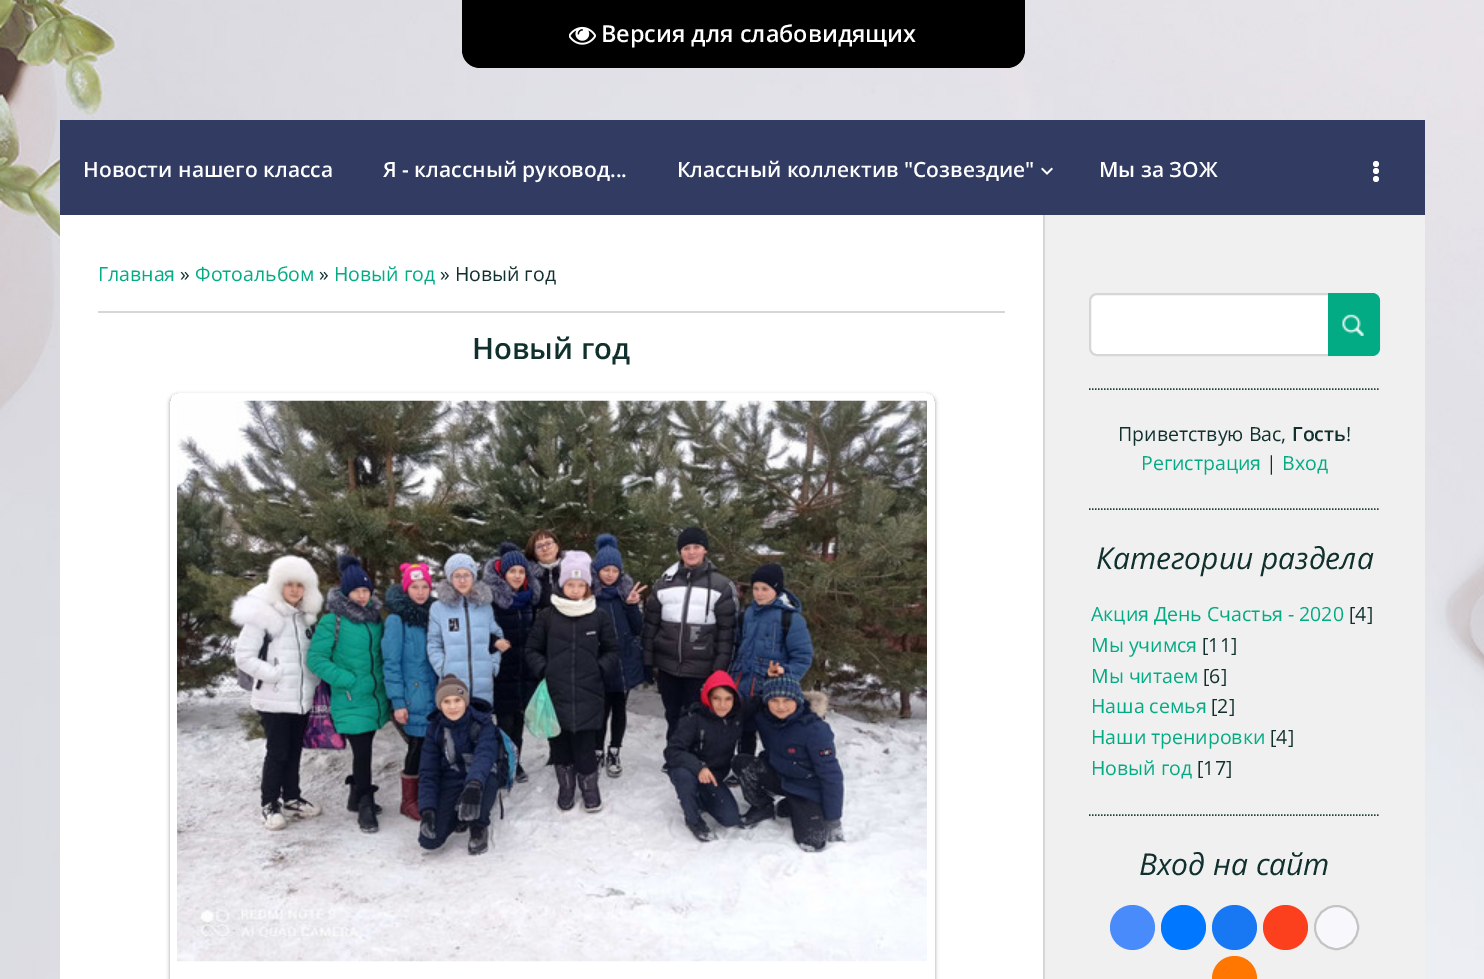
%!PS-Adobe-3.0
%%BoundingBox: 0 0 1484 979
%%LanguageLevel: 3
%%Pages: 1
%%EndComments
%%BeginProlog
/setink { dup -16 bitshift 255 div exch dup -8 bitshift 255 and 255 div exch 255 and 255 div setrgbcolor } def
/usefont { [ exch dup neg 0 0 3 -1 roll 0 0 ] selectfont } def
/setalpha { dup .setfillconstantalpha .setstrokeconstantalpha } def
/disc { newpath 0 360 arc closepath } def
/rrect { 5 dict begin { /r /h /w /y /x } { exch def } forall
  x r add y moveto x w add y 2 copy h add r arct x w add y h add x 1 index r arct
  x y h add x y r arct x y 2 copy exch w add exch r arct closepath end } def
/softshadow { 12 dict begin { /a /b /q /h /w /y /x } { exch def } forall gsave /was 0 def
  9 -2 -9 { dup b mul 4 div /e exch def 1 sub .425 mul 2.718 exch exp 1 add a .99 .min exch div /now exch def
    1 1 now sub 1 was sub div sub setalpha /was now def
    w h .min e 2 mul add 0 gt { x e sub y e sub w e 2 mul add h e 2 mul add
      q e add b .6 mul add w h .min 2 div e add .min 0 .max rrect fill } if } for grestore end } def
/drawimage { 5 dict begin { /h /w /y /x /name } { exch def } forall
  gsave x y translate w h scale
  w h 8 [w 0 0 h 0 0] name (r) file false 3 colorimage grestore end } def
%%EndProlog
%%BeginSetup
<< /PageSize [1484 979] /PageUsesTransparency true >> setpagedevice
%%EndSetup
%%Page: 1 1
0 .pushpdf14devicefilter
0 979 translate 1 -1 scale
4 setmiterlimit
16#FFFFFF setink
0 0 1484 979 rectfill
(img1.raw) 0 0 1484 979 drawimage
16#000000 setink
462 0 moveto 1025 0 lineto 1025 50 lineto 1025 60 1017 68 1007 68 curveto 480 68 lineto 470 68 462 60 462 50 curveto closepath fill
(img2.raw) 569 26 27 19 drawimage
/OpenSans-SemiBold 23.4 usefont
16#FFFFFF setink
601 42 moveto (Версия для слабовидящих) show
16#323C63 setink
60 120 1365 95 rectfill
/OpenSans-SemiBold 21 usefont
16#FFFFFF setink
[
    [(Новости нашего класса) 83 177]
    [(Я - классный руковод...) 383 177]
    [(Классный коллектив "Созвездие") 677 177]
] { aload pop moveto show } forall
(img3.raw) 1041 167 12 8 drawimage
1099 177 moveto (Мы за ЗОЖ) show
1376 164 3 disc fill
1376 171 3 disc fill
1376 179 3 disc fill
60 215 983 764 rectfill
/OpenSans-Regular 19.5 usefont
16#02AB84 setink
98 281 moveto (Главная) show
16#10302D setink
180 281 moveto (») show
16#02AB84 setink
195 281 moveto (Фотоальбом) show
16#10302D setink
319 281 moveto (») show
16#02AB84 setink
334 281 moveto (Новый год) show
16#10302D setink
440 281 moveto (» Новый год) show
16#D6D6D6 setink
98 311 907 2 rectfill
/OpenSans-SemiBold 29.25 usefont
16#10302D setink
472 359 moveto (Новый год) show
gsave
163 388 moveto 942 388 lineto 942 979 lineto 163 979 lineto closepath 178 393 moveto 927 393 lineto 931.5 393 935 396.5 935 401 curveto 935 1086 lineto 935 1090.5 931.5 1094 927 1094 curveto 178 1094 lineto 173.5 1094 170 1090.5 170 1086 curveto 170 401 lineto 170 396.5 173.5 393 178 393 curveto closepath eoclip newpath
16#000000 setink
170 395 765 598 8 2 0.37 softshadow
grestore
(img4.raw) 177 400 750 562 drawimage
16#F0F0F0 setink
1045 215 380 764 rectfill
16#D6D6D6 setink
1043 215 2 764 rectfill
16#1E4035 setink
1.5 setlinewidth
[1.5 1.5] 0 setdash
1089 389 moveto 1380 389 lineto stroke
16#FFFFFF setink
1090 294 289 61 7 rrect gsave fill grestore
16#D6D6D6 setink
2 setlinewidth
[] 0 setdash
stroke
16#02AB84 setink
1328 293 moveto 1372 293 lineto 1376.5 293 1380 296.5 1380 301 curveto 1380 348 lineto 1380 352.5 1376.5 356 1372 356 curveto 1328 356 lineto closepath fill
(img5.raw) 1342 314 22 22 drawimage
16#1E4035 setink
1.5 setlinewidth
[1.5 1.5] 0 setdash
1089 509 moveto 1380 509 lineto stroke
/OpenSans-Regular 19.5 usefont
16#10302D setink
1118 441 moveto (Приветствую Вас,) show
/OpenSans-SemiBold 19.5 usefont
1292 441 moveto (Гость) show
/OpenSans-Regular 19.5 usefont
1346 441 moveto (!) show
16#02AB84 setink
1141 470 moveto (Регистрация) show
16#10302D setink
1266 470 moveto (|) show
16#02AB84 setink
1282 470 moveto (Вход) show
16#1E4035 setink
1089 815 moveto 1380 815 lineto stroke
/OpenSans-Italic 30 usefont
16#10302D setink
1096 569 moveto (Категории раздела) show
/OpenSans-Regular 19.5 usefont
16#02AB84 setink
1091 621 moveto (Акция День Счастья - 2020) show
16#10302D setink
1349 621 moveto ([4]) show
16#02AB84 setink
1091 652 moveto (Мы учимся) show
16#10302D setink
1202 652 moveto ([11]) show
16#02AB84 setink
1091 683 moveto (Мы читаем) show
16#10302D setink
1203 683 moveto ([6]) show
16#02AB84 setink
1091 713 moveto (Наша семья) show
16#10302D setink
1211 713 moveto ([2]) show
16#02AB84 setink
1091 744 moveto (Наши тренировки) show
16#10302D setink
1270 744 moveto ([4]) show
16#02AB84 setink
1091 775 moveto (Новый год) show
16#10302D setink
1197 775 moveto ([17]) show
/OpenSans-Italic 30 usefont
1139 875 moveto (Вход на сайт) show
16#498BFA setink
1132.5 927.5 22.5 disc fill
16#0077FF setink
1183.5 927.5 22.5 disc fill
16#1877F2 setink
1234.5 927.5 22.5 disc fill
16#FC3F1D setink
1285.5 927.5 22.5 disc fill
16#F8F8FC setink
1336.5 927.5 21.5 disc gsave fill grestore
16#C4C4C4 setink
2 setlinewidth
[] 0 setdash
stroke
16#FF7700 setink
1234.5 978.5 22.5 disc fill
.poppdf14devicefilter showpage
%%EOF
